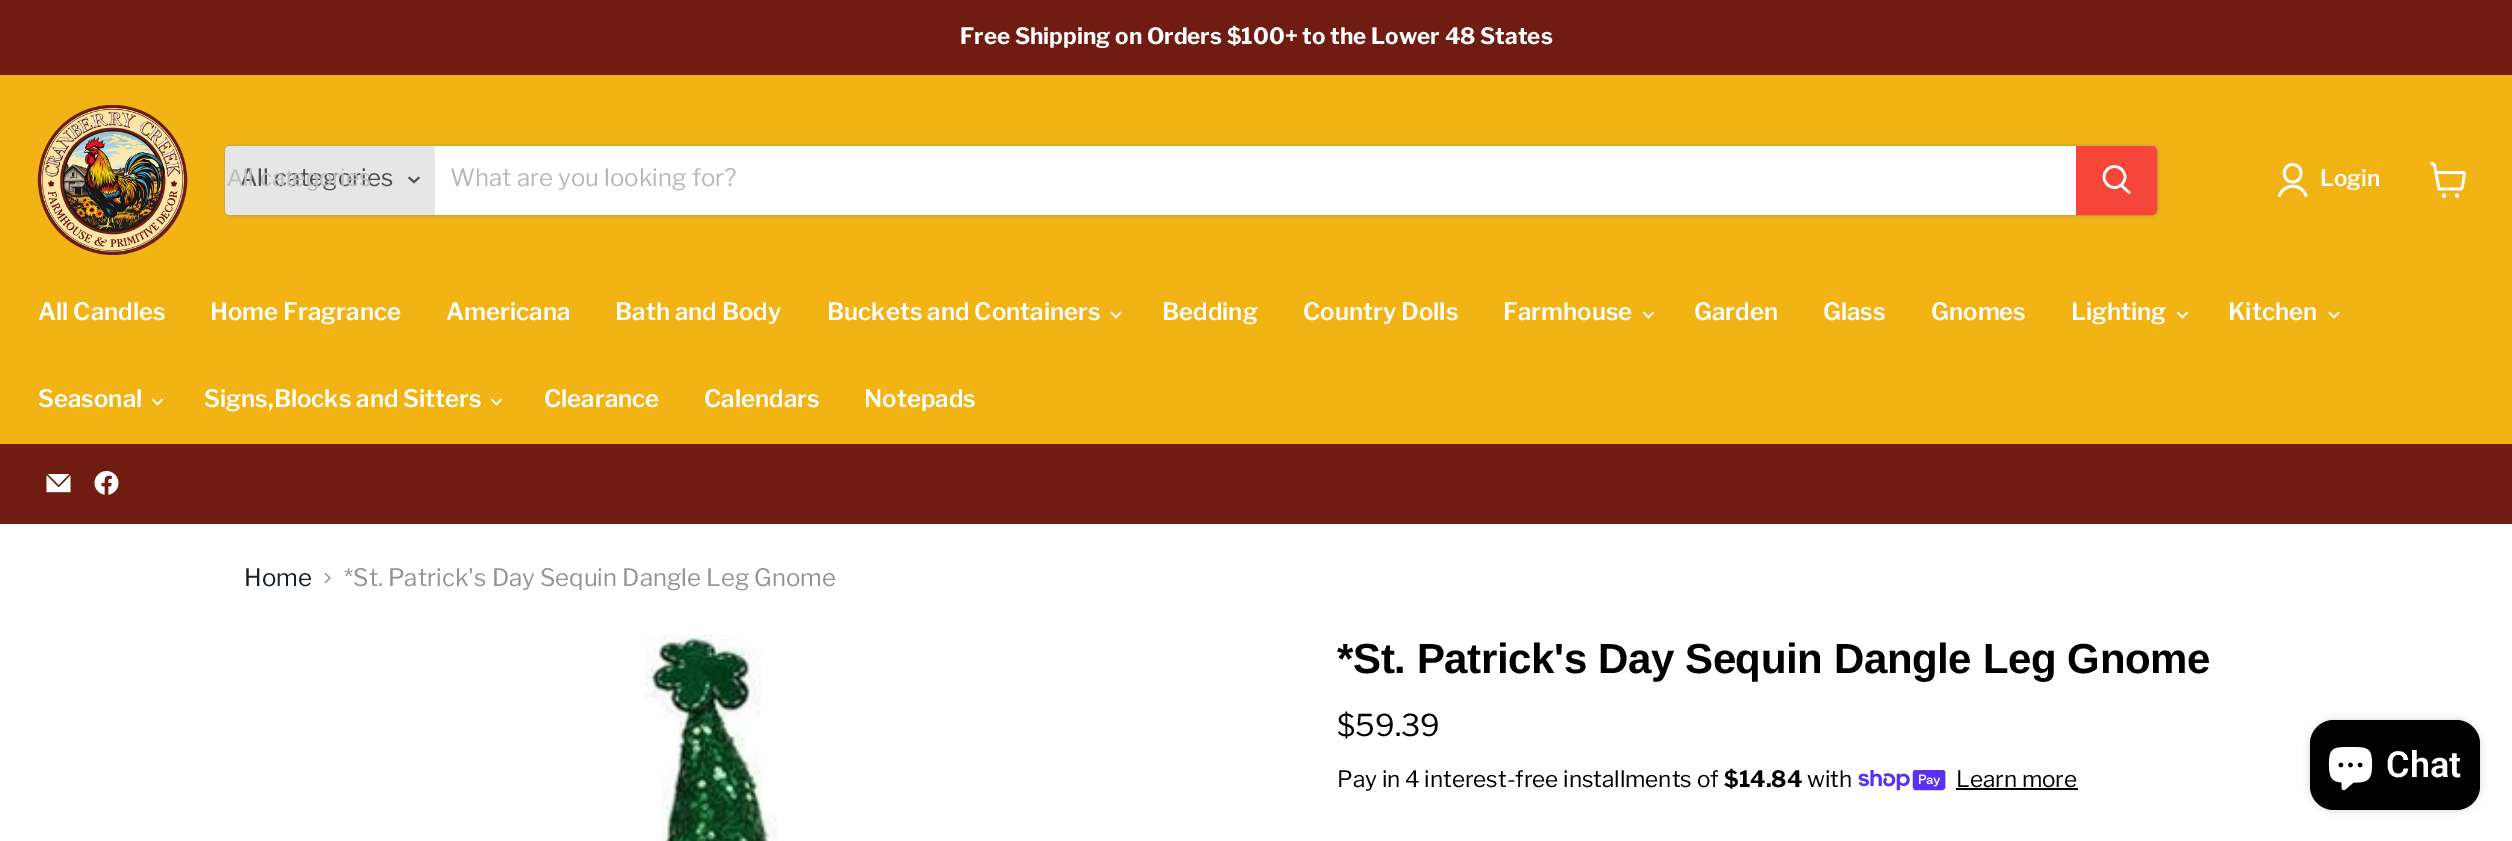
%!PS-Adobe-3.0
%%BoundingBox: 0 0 2512 841
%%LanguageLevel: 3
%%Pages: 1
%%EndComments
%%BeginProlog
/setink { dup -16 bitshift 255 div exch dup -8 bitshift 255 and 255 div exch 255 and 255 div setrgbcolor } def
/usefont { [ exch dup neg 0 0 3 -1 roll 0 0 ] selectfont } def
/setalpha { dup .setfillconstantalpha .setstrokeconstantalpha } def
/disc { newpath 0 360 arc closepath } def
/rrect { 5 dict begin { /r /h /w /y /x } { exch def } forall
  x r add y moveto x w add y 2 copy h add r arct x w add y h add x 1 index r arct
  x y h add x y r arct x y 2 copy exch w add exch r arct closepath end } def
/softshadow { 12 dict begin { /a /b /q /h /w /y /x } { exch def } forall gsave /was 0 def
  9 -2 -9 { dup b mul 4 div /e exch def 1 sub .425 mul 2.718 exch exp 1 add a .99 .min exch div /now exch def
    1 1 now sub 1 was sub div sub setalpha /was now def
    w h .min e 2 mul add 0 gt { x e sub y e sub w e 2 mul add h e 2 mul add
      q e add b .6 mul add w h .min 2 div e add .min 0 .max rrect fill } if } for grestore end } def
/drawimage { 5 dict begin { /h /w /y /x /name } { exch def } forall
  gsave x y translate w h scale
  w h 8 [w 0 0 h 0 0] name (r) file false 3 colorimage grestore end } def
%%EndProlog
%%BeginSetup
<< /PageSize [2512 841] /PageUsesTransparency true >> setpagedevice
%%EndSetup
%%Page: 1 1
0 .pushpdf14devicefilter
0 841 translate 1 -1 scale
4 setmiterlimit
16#FFFFFF setink
0 0 2512 841 rectfill
16#701C13 setink
0 0 2512 75 rectfill
/LibreFranklin-Bold 22.5 usefont
16#FFFFFF setink
960 44 moveto (Free Shipping on Orders $100+ to the Lower 48 States) show
16#F1B414 setink
0 75 2512 369 rectfill
(img1.raw) 37 105 151 150 drawimage
16#808080 setink
224 147 1935 72 6 2 0.11 softshadow
0.2 setalpha
2 setlinewidth
225 145 1933 70 5 rrect stroke
1 setalpha
16#E6E6E6 setink
230 146 moveto 435 146 lineto 435 215 lineto 230 215 lineto 227 215 225 213 225 210 curveto 225 151 lineto 225 148 227 146 230 146 curveto closepath fill
/LibreFranklin-Regular 24 usefont
16#4D4D4D setink
240 186 moveto (All categories) show
/LiberationSans-Regular 24 usefont
16#BFBFBF setink
227 186 moveto (All categories) show
16#4D4D4D setink
1.9 setlinewidth
2 setlinecap
414 182 moveto 418.5 178 lineto 414 182 moveto 409.5 178 lineto stroke
16#FFFFFF setink
435 146 1641 69 rectfill
/LibreFranklin-Regular 24 usefont
16#B8B8B8 setink
450 186 moveto (What are you looking for?) show
16#F64539 setink
2077 147 moveto 2152 147 lineto 2154 147 2156 149 2156 151 curveto 2156 210 lineto 2156 212 2154 214 2152 214 curveto 2077 214 lineto closepath gsave fill grestore
2 setlinewidth
0 setlinecap
stroke
16#FFFFFF setink
2.6 setlinewidth
1 setlinecap
2129 192.5 moveto 2121.5 185.5 lineto stroke
0 setlinecap
2114.5 177 10.5 disc stroke
2.8 setlinewidth
1 setlinecap
1 setlinejoin
2292.5 182 moveto 2304 182 2304 164.5 2292.5 164.5 curveto 2281.5 164.5 2281.5 182 2292.5 182 curveto closepath 2306 195.5 moveto 2301.5 183 2284 183 2279.5 195.5 curveto stroke
/LibreFranklin-SemiBold 22.5 usefont
2320 186 moveto (Login) show
(img2.raw) 2430 162 36 36 drawimage
/LibreFranklin-SemiBold 24 usefont
[
    [(All Candles) 38 320]
    [(Home Fragrance) 210 320]
    [(Americana) 446 320]
    [(Bath and Body) 615 320]
    [(Buckets and Containers) 827 320]
] { aload pop moveto show } forall
(img3.raw) 1110 311 12 8 drawimage
[
    [(Bedding) 1162 320]
    [(Country Dolls) 1303 320]
    [(Farmhouse) 1503 320]
] { aload pop moveto show } forall
(img4.raw) 1643 311 12 8 drawimage
[
    [(Garden) 1694 320]
    [(Glass) 1823 320]
    [(Gnomes) 1931 320]
    [(Lighting) 2071 320]
] { aload pop moveto show } forall
(img4.raw) 2177 311 12 8 drawimage
2228 320 moveto (Kitchen) show
(img3.raw) 2328 311 12 8 drawimage
38 407 moveto (Seasonal) show
(img4.raw) 152 398 12 8 drawimage
204 407 moveto (Signs,Blocks and Sitters) show
(img4.raw) 491 398 12 8 drawimage
[
    [(Clearance) 544 407]
    [(Calendars) 704 407]
    [(Notepads) 864 407]
] { aload pop moveto show } forall
16#701C13 setink
0 444 2512 80 rectfill
(img5.raw) 46 474 25 19 drawimage
(img6.raw) 94 471 25 24 drawimage
/LibreFranklin-Regular 24 usefont
16#171F2B setink
244 586 moveto (Home) show
(img7.raw) 324 572 7 12 drawimage
16#949494 setink
344 586 moveto (*St. Patrick's Day Sequin Dangle Leg Gnome) show
(img8.raw) 644 634 134 207 drawimage
/Arimo-Bold 42 usefont
16#000000 setink
1337 673 moveto -0.4 0 (*St. Patrick's Day Sequin Dangle Leg Gnome) ashow
/LibreFranklin-Regular 30 usefont
1337 736 moveto ($59.39) show
/LibreFranklin-Regular 22.5 usefont
1337 787 moveto (Pay in 4 interest-free installments of) show
/LibreFranklin-Bold 22.5 usefont
1724 787 moveto ($14.84) show
/LibreFranklin-Regular 22.5 usefont
1807 787 moveto (with) show
(img9.raw) 1858 770 88 21 drawimage
1956 787 moveto (Learn more) show
1956 788 122 2 rectfill
2310 720 170 90 24 4 0.15 softshadow
2310 720 170 90 24 rrect fill
(img10.raw) 2328 747 45 44 drawimage
/Roboto-SemiBold 36 usefont
16#FFFFFF setink
2386 777 moveto (Chat) show
.poppdf14devicefilter showpage
%%EOF
